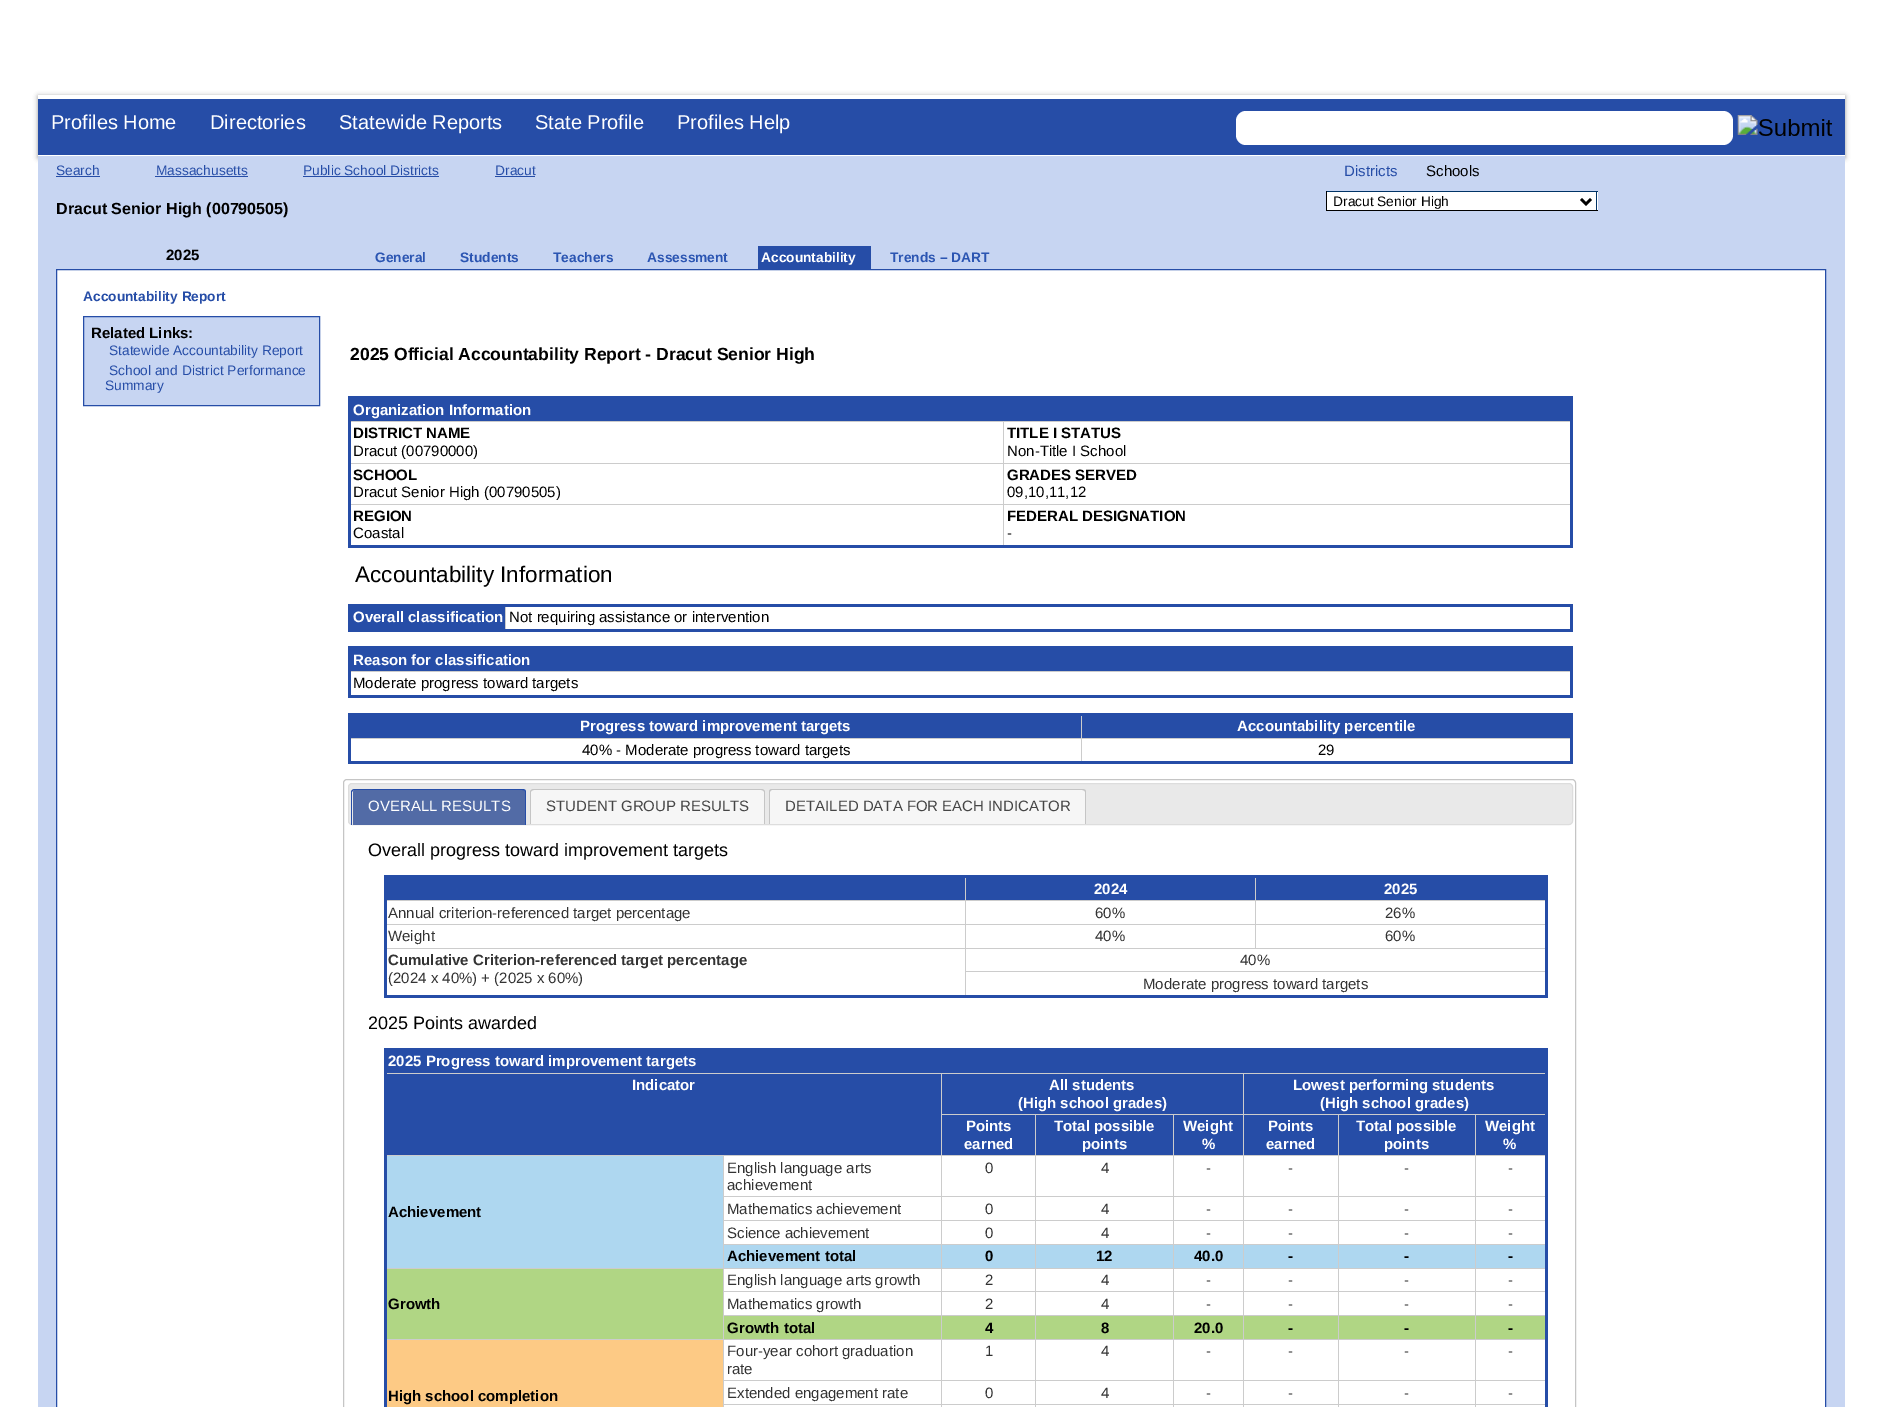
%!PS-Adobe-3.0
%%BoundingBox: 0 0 1882 1407
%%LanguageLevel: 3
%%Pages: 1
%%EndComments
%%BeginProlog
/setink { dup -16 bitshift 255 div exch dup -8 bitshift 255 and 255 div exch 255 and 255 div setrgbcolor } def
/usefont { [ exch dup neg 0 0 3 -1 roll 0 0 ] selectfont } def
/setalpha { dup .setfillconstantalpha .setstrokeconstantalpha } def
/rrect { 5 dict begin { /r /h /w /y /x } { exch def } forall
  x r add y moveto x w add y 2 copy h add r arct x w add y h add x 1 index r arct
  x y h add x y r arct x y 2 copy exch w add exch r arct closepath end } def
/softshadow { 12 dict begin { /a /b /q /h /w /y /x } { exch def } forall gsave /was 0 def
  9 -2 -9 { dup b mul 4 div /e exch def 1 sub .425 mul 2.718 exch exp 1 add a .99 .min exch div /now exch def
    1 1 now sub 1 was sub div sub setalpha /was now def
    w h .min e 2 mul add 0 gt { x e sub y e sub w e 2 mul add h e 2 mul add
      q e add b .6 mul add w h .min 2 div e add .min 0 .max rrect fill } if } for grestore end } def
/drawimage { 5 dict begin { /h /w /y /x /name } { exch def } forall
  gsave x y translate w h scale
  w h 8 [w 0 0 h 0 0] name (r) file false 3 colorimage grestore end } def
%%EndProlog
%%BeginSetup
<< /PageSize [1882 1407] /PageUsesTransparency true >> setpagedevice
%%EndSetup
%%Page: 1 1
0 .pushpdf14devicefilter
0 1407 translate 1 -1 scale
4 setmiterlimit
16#FFFFFF setink
0 0 1882 1407 rectfill
16#9C9C9C setink
38 96 1807 62 0 2.5 1 softshadow
[
    [38 99 1807 56 16#264DA7]
    [38 95 1807 4 16#FFFFFF]
    [38 155 1807 1 16#FFFFFF]
] { aload pop setink rectfill } forall
/LiberationSans-Regular 20 usefont
[
    [(Profiles Home) 51 129]
    [(Directories) 210 129]
    [(Statewide Reports) 339 129]
    [(State Profile) 535 129]
    [(Profiles Help) 677 129]
] { aload pop moveto show } forall
1236 111 497 34 10 rrect fill
(img1.raw) 1737 115 96 21 drawimage
16#C7D5F2 setink
38 156 1807 1251 rectfill
/LiberationSans-Regular 13.75 usefont
16#264DA7 setink
56 175 moveto (Search) show
56 176 44 1 rectfill
156 175 moveto (Massachusetts) show
155 176 93 1 rectfill
303 175 moveto (Public School Districts) show
303 176 136 1 rectfill
495 175 moveto (Dracut) show
495 176 40 1 rectfill
/LiberationSans-Bold 16.1 usefont
16#000000 setink
56 214 moveto (Dracut Senior High \(00790505\)) show
/LiberationSans-Regular 15 usefont
16#264DA7 setink
1344 176 moveto (Districts) show
16#000000 setink
1426 176 moveto (Schools) show
[
    [1327 192 271 18 16#FFFFFF]
    [1326 191 272 1 16#003366]
    [1596 191 1 20 16#003366]
    [1326 210 272 1 16#000000]
    [1326 191 1 20 16#000000]
] { aload pop setink rectfill } forall
2.5 setlinewidth
1581 199 moveto 1586 204 lineto 1591 199 lineto stroke
/LiberationSans-Regular 13.75 usefont
1333 206 moveto (Dracut Senior High) show
/LiberationSans-Bold 15 usefont
166 260 moveto (2025) show
/LiberationSans-Bold 13.75 usefont
16#2B55B2 setink
[
    [(General) 375 262]
    [(Students) 460 262]
    [(Teachers) 553 262]
    [(Assessment) 647 262]
] { aload pop moveto show } forall
16#264DA7 setink
758 246 113 23 rectfill
16#FFFFFF setink
761 262 moveto (Accountability) show
16#2B55B2 setink
890 262 moveto (Trends – DART) show
16#FFFFFF setink
56.5 269.5 moveto 1825.5 269.5 lineto 1825.5 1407.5 lineto 56.5 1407.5 lineto closepath gsave fill grestore
16#264DA7 setink
1 setlinewidth
stroke
83 301 moveto (Accountability Report) show
16#C7D5F2 setink
83.5 316.5 moveto 319.5 316.5 lineto 319.5 405.5 lineto 83.5 405.5 lineto closepath gsave fill grestore
16#264DA7 setink
stroke
/LiberationSans-Bold 15 usefont
16#000000 setink
91 338 moveto (Related Links:) show
/LiberationSans-Regular 13.75 usefont
16#264DA7 setink
[
    [(Statewide Accountability Report) 109 355]
    [(School and District Performance) 109 375]
    [(Summary) 105 390]
] { aload pop moveto show } forall
/LiberationSans-Bold 17.55 usefont
16#000000 setink
350 360 moveto (2025 Official Accountability Report - Dracut Senior High) show
[
    [348 396 1225 3 16#264DA7]
    [1003 421 570 1 16#CCCCCC]
    [1003 463 570 1 16#CCCCCC]
    [1003 504 570 1 16#CCCCCC]
    [1570 396 3 152 16#264DA7]
    [1003 504 1 42 16#CCCCCC]
    [348 545 1225 3 16#264DA7]
    [349 504 655 1 16#CCCCCC]
    [1003 463 1 42 16#CCCCCC]
    [349 463 655 1 16#CCCCCC]
    [1003 421 1 43 16#CCCCCC]
    [349 421 655 1 16#CCCCCC]
    [348 396 3 152 16#264DA7]
    [351 399 1219 22 16#264DA7]
] { aload pop setink rectfill } forall
/LiberationSans-Bold 15 usefont
16#FFFFFF setink
353 415 moveto (Organization Information) show
16#000000 setink
353 438 moveto (DISTRICT NAME) show
/LiberationSans-Regular 15 usefont
353 456 moveto (Dracut \(00790000\)) show
/LiberationSans-Bold 15 usefont
1007 438 moveto (TITLE I STATUS) show
/LiberationSans-Regular 15 usefont
1007 456 moveto (Non-Title I School) show
/LiberationSans-Bold 15 usefont
353 480 moveto (SCHOOL) show
/LiberationSans-Regular 15 usefont
353 497 moveto (Dracut Senior High \(00790505\)) show
/LiberationSans-Bold 15 usefont
1007 480 moveto (GRADES SERVED) show
/LiberationSans-Regular 15 usefont
1007 497 moveto (09,10,11,12) show
/LiberationSans-Bold 15 usefont
353 521 moveto (REGION) show
/LiberationSans-Regular 15 usefont
353 538 moveto (Coastal) show
/LiberationSans-Bold 15 usefont
1007 521 moveto (FEDERAL DESIGNATION) show
/LiberationSans-Regular 15 usefont
1007 538 moveto (-) show
/LiberationSans-Regular 22.5 usefont
355 582 moveto (Accountability Information) show
[
    [505 604 1 26 16#CCCCCC]
    [348 604 1225 3 16#264DA7]
    [1570 604 3 27 16#264DA7]
    [348 629 1225 3 16#264DA7]
    [348 604 3 27 16#264DA7]
    [351 607 154 22 16#264DA7]
] { aload pop setink rectfill } forall
/LiberationSans-Bold 15 usefont
16#FFFFFF setink
353 622 moveto (Overall classification) show
/LiberationSans-Regular 15 usefont
16#000000 setink
509 622 moveto (Not requiring assistance or intervention) show
[
    [348 646 1225 3 16#264DA7]
    [349 671 1224 1 16#CCCCCC]
    [1570 646 3 52 16#264DA7]
    [348 695 1225 3 16#264DA7]
    [348 646 3 52 16#264DA7]
    [351 649 1219 22 16#264DA7]
] { aload pop setink rectfill } forall
/LiberationSans-Bold 15 usefont
16#FFFFFF setink
353 665 moveto (Reason for classification) show
/LiberationSans-Regular 15 usefont
16#000000 setink
353 688 moveto (Moderate progress toward targets) show
[
    [351 716 1219 22 16#264DA7]
    [1081 738 492 1 16#CCCCCC]
    [1081 738 1 25 16#CCCCCC]
    [349 738 734 1 16#CCCCCC]
    [1081 713 1 26 16#CCCCCC]
    [348 713 1225 3 16#264DA7]
    [1570 713 3 51 16#264DA7]
    [348 761 1225 3 16#264DA7]
    [348 713 3 51 16#264DA7]
] { aload pop setink rectfill } forall
/LiberationSans-Bold 15 usefont
16#FFFFFF setink
580 731 moveto (Progress toward improvement targets) show
1237 731 moveto (Accountability percentile) show
/LiberationSans-Regular 15 usefont
16#000000 setink
582 755 moveto (40% - Moderate progress toward targets) show
1318 755 moveto (29) show
16#C5C5C5 setink
343.5 779.5 1232 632 3.5 rrect stroke
16#E9E9E9 setink
348.5 783.5 1224 41 3.5 rrect gsave fill grestore
16#DDDDDD setink
stroke
16#526BA6 setink
355.5 790 moveto 522.5 790 lineto 524 790 525 791 525 792.5 curveto 525 825 lineto 353 825 lineto 353 792.5 lineto 353 791 354 790 355.5 790 curveto closepath fill
16#264DA7 setink
355 789 moveto 522 789 lineto 525 789 526 790 526 792 curveto 526 825 lineto 351 825 lineto 351 792 lineto 351 790 353 789 355 789 curveto closepath 355 790 moveto 522 790 lineto 524 790 525 791 525 792 curveto 525 825 lineto 352 825 lineto 352 792 lineto 352 791 354 790 355 790 curveto closepath eofill
16#FFFFFF setink
368 811 moveto (OVERALL RESULTS) show
16#F6F6F6 setink
533.5 790 moveto 761.5 790 lineto 763 790 764 791 764 792.5 curveto 764 824 lineto 531 824 lineto 531 792.5 lineto 531 791 532 790 533.5 790 curveto closepath fill
16#C5C5C5 setink
534 789 moveto 761 789 lineto 763 789 765 790 765 792 curveto 765 824 lineto 530 824 lineto 530 792 lineto 530 790 532 789 534 789 curveto closepath 534 790 moveto 761 790 lineto 763 790 764 791 764 792 curveto 764 824 lineto 531 824 lineto 531 792 lineto 531 791 532 790 534 790 curveto closepath eofill
16#454545 setink
546 811 moveto (STUDENT GROUP RESULTS) show
16#F6F6F6 setink
772.5 790 moveto 1082.5 790 lineto 1084 790 1085 791 1085 792.5 curveto 1085 824 lineto 770 824 lineto 770 792.5 lineto 770 791 771 790 772.5 790 curveto closepath fill
16#C5C5C5 setink
772 789 moveto 1082 789 lineto 1085 789 1086 790 1086 792 curveto 1086 824 lineto 769 824 lineto 769 792 lineto 769 790 770 789 772 789 curveto closepath 772 790 moveto 1082 790 lineto 1084 790 1085 791 1085 792 curveto 1085 824 lineto 770 824 lineto 770 792 lineto 770 791 771 790 772 790 curveto closepath eofill
16#454545 setink
785 811 moveto (DETAILED DATA FOR EACH INDICATOR) show
/LiberationSans-Regular 18 usefont
16#000000 setink
368 856 moveto (Overall progress toward improvement targets) show
[
    [1255 900 291 1 16#CCCCCC]
    [1255 924 291 1 16#CCCCCC]
    [965 948 581 1 16#CCCCCC]
    [1255 924 1 25 16#CCCCCC]
    [965 924 291 1 16#CCCCCC]
    [1255 900 1 25 16#CCCCCC]
    [965 900 291 1 16#CCCCCC]
    [965 971 581 1 16#CCCCCC]
    [965 971 1 27 16#CCCCCC]
    [965 948 1 25 16#CCCCCC]
    [384 948 582 1 16#CCCCCC]
    [965 924 1 25 16#CCCCCC]
    [384 924 582 1 16#CCCCCC]
    [965 900 1 25 16#CCCCCC]
    [384 900 582 1 16#CCCCCC]
    [965 876 1 25 16#CCCCCC]
    [1255 876 1 25 16#CCCCCC]
    [384 875 1164 3 16#264DA7]
    [1545 875 3 123 16#264DA7]
    [384 995 1164 3 16#264DA7]
    [384 875 3 123 16#264DA7]
    [387 878 578 22 16#264DA7]
    [966 878 289 22 16#264DA7]
] { aload pop setink rectfill } forall
/LiberationSans-Bold 15 usefont
16#FFFFFF setink
1094 894 moveto (2024) show
16#264DA7 setink
1256 878 289 22 rectfill
16#FFFFFF setink
1384 894 moveto (2025) show
/LiberationSans-Regular 15 usefont
16#333333 setink
[
    [(Annual criterion-referenced target percentage) 388 918]
    [(60%) 1095 918]
    [(26%) 1385 918]
    [(Weight) 388 941]
    [(40%) 1095 941]
    [(60%) 1385 941]
] { aload pop moveto show } forall
/LiberationSans-Bold 15 usefont
388 965 moveto (Cumulative Criterion-referenced target percentage) show
/LiberationSans-Regular 15 usefont
[
    [(\(2024 x 40%\) + \(2025 x 60%\)) 388 983]
    [(40%) 1240 965]
    [(Moderate progress toward targets) 1143 989]
] { aload pop moveto show } forall
/LiberationSans-Regular 18 usefont
16#000000 setink
368 1029 moveto (2025 Points awarded) show
[
    [384 1048 1164 3 16#264DA7]
    [1243 1073 303 1 16#CCCCCC]
    [1475 1114 71 1 16#CCCCCC]
    [1475 1155 71 1 16#CCCCCC]
    [1475 1196 71 1 16#CCCCCC]
    [1475 1220 71 1 16#CCCCCC]
    [1475 1244 71 1 16#CCCCCC]
    [1475 1268 71 1 16#CCCCCC]
    [1475 1291 71 1 16#CCCCCC]
    [1475 1315 71 1 16#CCCCCC]
    [1475 1339 71 1 16#CCCCCC]
    [1475 1380 71 1 16#CCCCCC]
    [1475 1404 71 1 16#CCCCCC]
    [1545 1048 3 359 16#264DA7]
    [1475 1404 1 3 16#CCCCCC]
    [1338 1404 138 1 16#CCCCCC]
    [1475 1380 1 25 16#CCCCCC]
    [1338 1380 138 1 16#CCCCCC]
    [1475 1339 1 42 16#CCCCCC]
    [1338 1339 138 1 16#CCCCCC]
    [1475 1315 1 25 16#CCCCCC]
    [1338 1315 138 1 16#CCCCCC]
    [1475 1291 1 25 16#CCCCCC]
    [1338 1291 138 1 16#CCCCCC]
    [1475 1268 1 25 16#CCCCCC]
    [1338 1268 138 1 16#CCCCCC]
    [1475 1244 1 25 16#CCCCCC]
    [1338 1244 138 1 16#CCCCCC]
    [1475 1220 1 25 16#CCCCCC]
    [1338 1220 138 1 16#CCCCCC]
    [1475 1196 1 25 16#CCCCCC]
    [1338 1196 138 1 16#CCCCCC]
    [1475 1155 1 43 16#CCCCCC]
    [1338 1155 138 1 16#CCCCCC]
    [1475 1114 1 42 16#CCCCCC]
    [1338 1114 138 1 16#CCCCCC]
    [1338 1404 1 3 16#CCCCCC]
    [1243 1404 96 1 16#CCCCCC]
    [1338 1380 1 25 16#CCCCCC]
    [1243 1380 96 1 16#CCCCCC]
    [1338 1339 1 42 16#CCCCCC]
    [1243 1339 96 1 16#CCCCCC]
    [1338 1315 1 25 16#CCCCCC]
    [1243 1315 96 1 16#CCCCCC]
    [1338 1291 1 25 16#CCCCCC]
    [1243 1291 96 1 16#CCCCCC]
    [1338 1268 1 25 16#CCCCCC]
    [1243 1268 96 1 16#CCCCCC]
    [1338 1244 1 25 16#CCCCCC]
    [1243 1244 96 1 16#CCCCCC]
    [1338 1220 1 25 16#CCCCCC]
    [1243 1220 96 1 16#CCCCCC]
    [1338 1196 1 25 16#CCCCCC]
    [1243 1196 96 1 16#CCCCCC]
    [1338 1155 1 43 16#CCCCCC]
    [1243 1155 96 1 16#CCCCCC]
    [1338 1114 1 42 16#CCCCCC]
    [1243 1114 96 1 16#CCCCCC]
    [1243 1404 1 3 16#CCCCCC]
    [1173 1404 71 1 16#CCCCCC]
    [1243 1380 1 25 16#CCCCCC]
    [1173 1380 71 1 16#CCCCCC]
    [1243 1339 1 42 16#CCCCCC]
    [1173 1339 71 1 16#CCCCCC]
    [1243 1315 1 25 16#CCCCCC]
    [1173 1315 71 1 16#CCCCCC]
    [1243 1291 1 25 16#CCCCCC]
    [1173 1291 71 1 16#CCCCCC]
    [1243 1268 1 25 16#CCCCCC]
    [1173 1268 71 1 16#CCCCCC]
    [1243 1244 1 25 16#CCCCCC]
    [1173 1244 71 1 16#CCCCCC]
    [1243 1220 1 25 16#CCCCCC]
    [1173 1220 71 1 16#CCCCCC]
    [1243 1196 1 25 16#CCCCCC]
    [1173 1196 71 1 16#CCCCCC]
    [1243 1155 1 43 16#CCCCCC]
    [1173 1155 71 1 16#CCCCCC]
    [1243 1114 1 42 16#CCCCCC]
    [1173 1114 71 1 16#CCCCCC]
    [1243 1073 1 42 16#CCCCCC]
    [941 1073 303 1 16#CCCCCC]
    [1173 1404 1 3 16#CCCCCC]
    [1035 1404 139 1 16#CCCCCC]
    [1173 1380 1 25 16#CCCCCC]
    [1035 1380 139 1 16#CCCCCC]
    [1173 1339 1 42 16#CCCCCC]
    [1035 1339 139 1 16#CCCCCC]
    [1173 1315 1 25 16#CCCCCC]
    [1035 1315 139 1 16#CCCCCC]
    [1173 1291 1 25 16#CCCCCC]
    [1035 1291 139 1 16#CCCCCC]
    [1173 1268 1 25 16#CCCCCC]
    [1035 1268 139 1 16#CCCCCC]
    [1173 1244 1 25 16#CCCCCC]
    [1035 1244 139 1 16#CCCCCC]
    [1173 1220 1 25 16#CCCCCC]
    [1035 1220 139 1 16#CCCCCC]
    [1173 1196 1 25 16#CCCCCC]
    [1035 1196 139 1 16#CCCCCC]
    [1173 1155 1 43 16#CCCCCC]
    [1035 1155 139 1 16#CCCCCC]
    [1173 1114 1 42 16#CCCCCC]
    [1035 1114 139 1 16#CCCCCC]
    [1035 1404 1 3 16#CCCCCC]
    [941 1404 95 1 16#CCCCCC]
    [1035 1380 1 25 16#CCCCCC]
    [941 1380 95 1 16#CCCCCC]
    [1035 1339 1 42 16#CCCCCC]
    [941 1339 95 1 16#CCCCCC]
    [1035 1315 1 25 16#CCCCCC]
    [941 1315 95 1 16#CCCCCC]
    [1035 1291 1 25 16#CCCCCC]
    [941 1291 95 1 16#CCCCCC]
    [1035 1268 1 25 16#CCCCCC]
    [941 1268 95 1 16#CCCCCC]
    [1035 1244 1 25 16#CCCCCC]
    [941 1244 95 1 16#CCCCCC]
    [1035 1220 1 25 16#CCCCCC]
    [941 1220 95 1 16#CCCCCC]
    [1035 1196 1 25 16#CCCCCC]
    [941 1196 95 1 16#CCCCCC]
    [1035 1155 1 43 16#CCCCCC]
    [941 1155 95 1 16#CCCCCC]
    [1035 1114 1 42 16#CCCCCC]
    [941 1114 95 1 16#CCCCCC]
    [941 1404 1 3 16#CCCCCC]
    [723 1404 220 1 16#CCCCCC]
    [941 1380 1 25 16#CCCCCC]
    [723 1380 220 1 16#CCCCCC]
    [941 1339 1 42 16#CCCCCC]
    [723 1339 220 1 16#CCCCCC]
    [941 1315 1 25 16#CCCCCC]
    [723 1315 220 1 16#CCCCCC]
    [941 1291 1 25 16#CCCCCC]
    [723 1291 220 1 16#CCCCCC]
    [941 1268 1 25 16#CCCCCC]
    [723 1268 220 1 16#CCCCCC]
    [941 1244 1 25 16#CCCCCC]
    [723 1244 220 1 16#CCCCCC]
    [941 1220 1 25 16#CCCCCC]
    [723 1220 220 1 16#CCCCCC]
    [941 1196 1 25 16#CCCCCC]
    [723 1196 220 1 16#CCCCCC]
    [941 1155 1 43 16#CCCCCC]
    [723 1155 220 1 16#CCCCCC]
    [941 1114 1 42 16#CCCCCC]
    [941 1073 1 42 16#CCCCCC]
    [384 1073 559 1 16#CCCCCC]
    [723 1404 1 3 16#CCCCCC]
    [723 1380 1 25 16#CCCCCC]
    [723 1339 1 42 16#CCCCCC]
    [384 1339 340 1 16#CCCCCC]
    [723 1315 1 25 16#CCCCCC]
    [723 1291 1 25 16#CCCCCC]
    [723 1268 1 25 16#CCCCCC]
    [384 1268 340 1 16#CCCCCC]
    [723 1244 1 25 16#CCCCCC]
    [723 1220 1 25 16#CCCCCC]
    [723 1196 1 25 16#CCCCCC]
    [723 1155 1 43 16#CCCCCC]
    [384 1155 340 1 16#CCCCCC]
    [384 1048 3 359 16#264DA7]
    [387 1051 1158 22 16#264DA7]
] { aload pop setink rectfill } forall
/LiberationSans-Bold 15 usefont
16#FFFFFF setink
388 1066 moveto (2025 Progress toward improvement targets) show
16#264DA7 setink
387 1074 554 81 rectfill
16#FFFFFF setink
632 1090 moveto (Indicator) show
16#264DA7 setink
942 1074 301 40 rectfill
16#FFFFFF setink
1049 1090 moveto (All students) show
1018 1108 moveto (\(High school grades\)) show
16#264DA7 setink
1244 1074 301 40 rectfill
16#FFFFFF setink
1293 1090 moveto (Lowest performing students) show
1320 1108 moveto (\(High school grades\)) show
16#264DA7 setink
942 1115 93 40 rectfill
16#FFFFFF setink
966 1131 moveto (Points) show
964 1149 moveto (earned) show
16#264DA7 setink
1036 1115 137 40 rectfill
16#FFFFFF setink
1054 1131 moveto (Total possible) show
1082 1149 moveto (points) show
16#264DA7 setink
1174 1115 69 40 rectfill
16#FFFFFF setink
1183 1131 moveto (Weight) show
1202 1149 moveto (%) show
16#264DA7 setink
1244 1115 94 40 rectfill
16#FFFFFF setink
1268 1131 moveto (Points) show
1266 1149 moveto (earned) show
16#264DA7 setink
1339 1115 136 40 rectfill
16#FFFFFF setink
1356 1131 moveto (Total possible) show
1384 1149 moveto (points) show
16#264DA7 setink
1476 1115 69 40 rectfill
16#FFFFFF setink
1485 1131 moveto (Weight) show
1503 1149 moveto (%) show
/LiberationSans-Regular 15 usefont
16#333333 setink
[
    [(English language arts) 727 1173]
    [(achievement) 727 1190]
    [(0) 985 1173]
    [(4) 1101 1173]
    [(-) 1206 1173]
    [(-) 1288 1173]
    [(-) 1404 1173]
    [(-) 1508 1173]
] { aload pop moveto show } forall
16#AED7F0 setink
387 1156 336 112 rectfill
/LiberationSans-Bold 15 usefont
16#000000 setink
388 1217 moveto (Achievement) show
/LiberationSans-Regular 15 usefont
16#333333 setink
[
    [(Mathematics achievement) 727 1214]
    [(0) 985 1214]
    [(4) 1101 1214]
    [(-) 1206 1214]
    [(-) 1288 1214]
    [(-) 1404 1214]
    [(-) 1508 1214]
    [(Science achievement) 727 1238]
    [(0) 985 1238]
    [(4) 1101 1238]
    [(-) 1206 1238]
    [(-) 1288 1238]
    [(-) 1404 1238]
    [(-) 1508 1238]
] { aload pop moveto show } forall
16#AED7F0 setink
724 1245 217 23 rectfill
/LiberationSans-Bold 15 usefont
16#000000 setink
727 1261 moveto (Achievement total) show
16#AED7F0 setink
942 1245 93 23 rectfill
16#000000 setink
985 1261 moveto (0) show
16#AED7F0 setink
1036 1245 137 23 rectfill
16#000000 setink
1096 1261 moveto (12) show
16#AED7F0 setink
1174 1245 69 23 rectfill
16#000000 setink
1194 1261 moveto (40.0) show
16#AED7F0 setink
1244 1245 94 23 rectfill
16#000000 setink
1288 1261 moveto (-) show
16#AED7F0 setink
1339 1245 136 23 rectfill
16#000000 setink
1404 1261 moveto (-) show
16#AED7F0 setink
1476 1245 69 23 rectfill
16#000000 setink
1508 1261 moveto (-) show
/LiberationSans-Regular 15 usefont
16#333333 setink
[
    [(English language arts growth) 727 1285]
    [(2) 985 1285]
    [(4) 1101 1285]
    [(-) 1206 1285]
    [(-) 1288 1285]
    [(-) 1404 1285]
    [(-) 1508 1285]
] { aload pop moveto show } forall
16#B0D684 setink
387 1269 336 70 rectfill
/LiberationSans-Bold 15 usefont
16#000000 setink
388 1309 moveto (Growth) show
/LiberationSans-Regular 15 usefont
16#333333 setink
[
    [(Mathematics growth) 727 1309]
    [(2) 985 1309]
    [(4) 1101 1309]
    [(-) 1206 1309]
    [(-) 1288 1309]
    [(-) 1404 1309]
    [(-) 1508 1309]
] { aload pop moveto show } forall
16#B0D684 setink
724 1316 217 23 rectfill
/LiberationSans-Bold 15 usefont
16#000000 setink
727 1333 moveto (Growth total) show
16#B0D684 setink
942 1316 93 23 rectfill
16#000000 setink
985 1333 moveto (4) show
16#B0D684 setink
1036 1316 137 23 rectfill
16#000000 setink
1101 1333 moveto (8) show
16#B0D684 setink
1174 1316 69 23 rectfill
16#000000 setink
1194 1333 moveto (20.0) show
16#B0D684 setink
1244 1316 94 23 rectfill
16#000000 setink
1288 1333 moveto (-) show
16#B0D684 setink
1339 1316 136 23 rectfill
16#000000 setink
1404 1333 moveto (-) show
16#B0D684 setink
1476 1316 69 23 rectfill
16#000000 setink
1508 1333 moveto (-) show
/LiberationSans-Regular 15 usefont
16#333333 setink
[
    [(Four-year cohort graduation) 727 1356]
    [(rate) 727 1374]
    [(1) 985 1356]
    [(4) 1101 1356]
    [(-) 1206 1356]
    [(-) 1288 1356]
    [(-) 1404 1356]
    [(-) 1508 1356]
] { aload pop moveto show } forall
16#FDCA85 setink
387 1340 336 67 rectfill
/LiberationSans-Bold 15 usefont
16#000000 setink
388 1401 moveto (High school completion) show
/LiberationSans-Regular 15 usefont
16#333333 setink
[
    [(Extended engagement rate) 727 1398]
    [(0) 985 1398]
    [(4) 1101 1398]
    [(-) 1206 1398]
    [(-) 1288 1398]
    [(-) 1404 1398]
    [(-) 1508 1398]
] { aload pop moveto show } forall
.poppdf14devicefilter showpage
%%EOF
